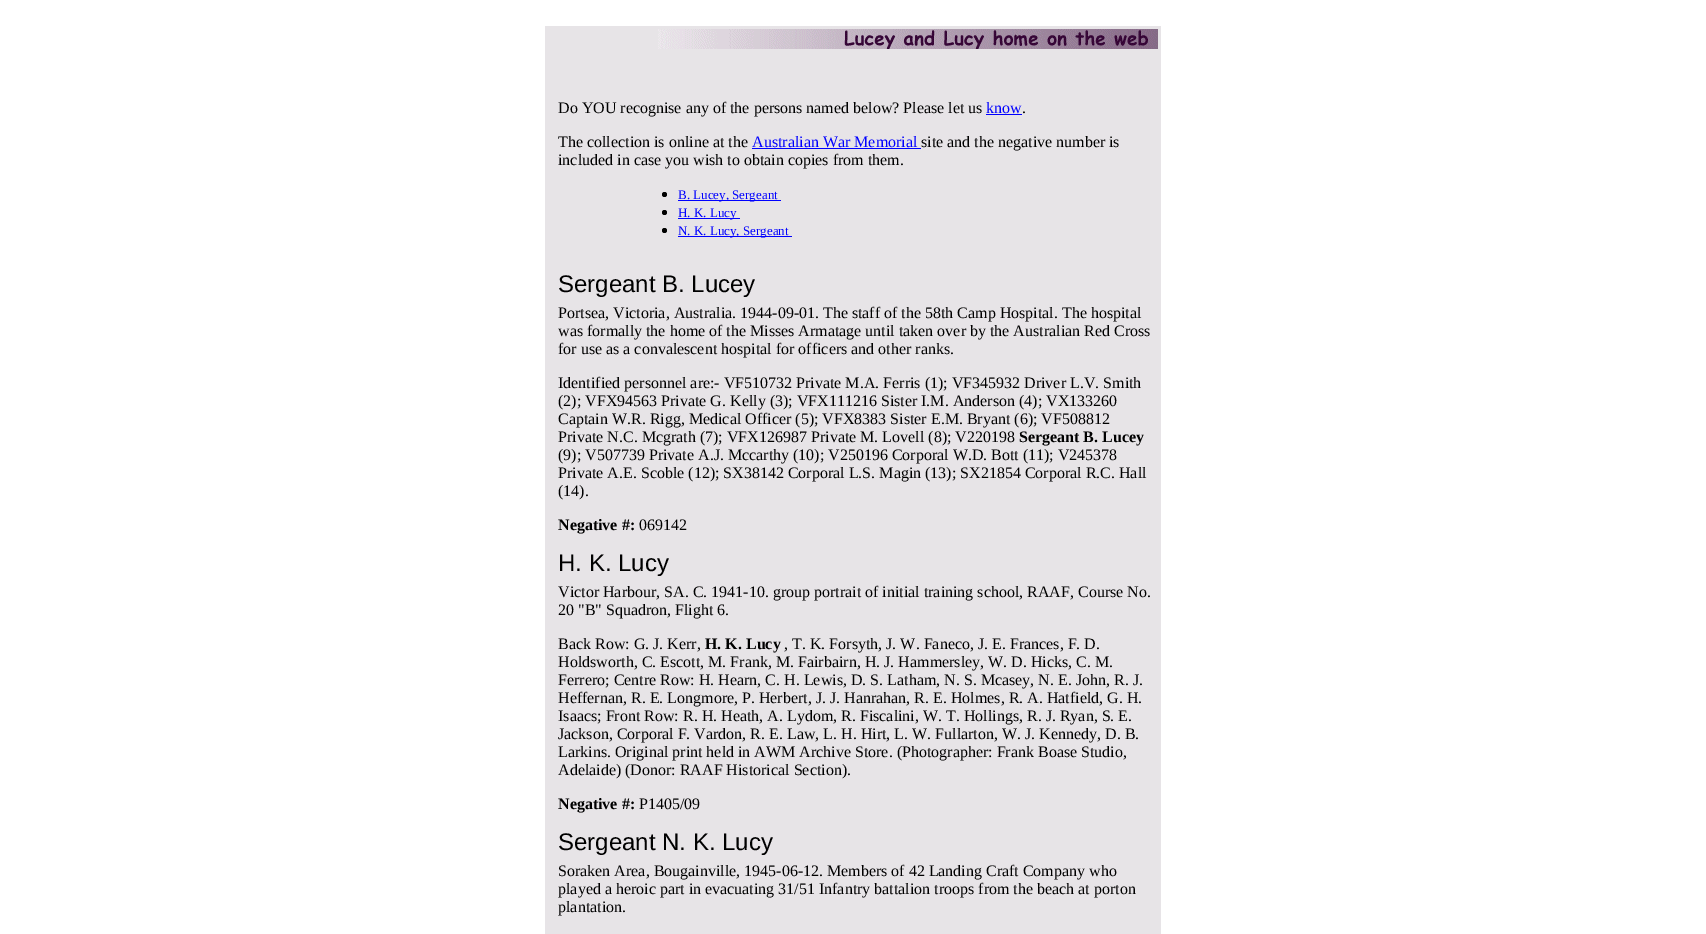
%!PS-Adobe-3.0
%%BoundingBox: 0 0 1706 934
%%LanguageLevel: 3
%%Pages: 1
%%EndComments
%%BeginProlog
/setink { dup -16 bitshift 255 div exch dup -8 bitshift 255 and 255 div exch 255 and 255 div setrgbcolor } def
/usefont { [ exch dup neg 0 0 3 -1 roll 0 0 ] selectfont } def
/disc { newpath 0 360 arc closepath } def
/drawimage { 5 dict begin { /h /w /y /x /name } { exch def } forall
  gsave x y translate w h scale
  w h 8 [w 0 0 h 0 0] name (r) file false 3 colorimage grestore end } def
%%EndProlog
%%BeginSetup
<< /PageSize [1706 934] >> setpagedevice
%%EndSetup
%%Page: 1 1
0 934 translate 1 -1 scale
4 setmiterlimit
16#FFFFFF setink
0 0 1706 934 rectfill
16#E7E4E7 setink
545 26 616 908 rectfill
(img1.raw) 658 29 500 20 drawimage
/LiberationSerif-Regular 16 usefont
16#000000 setink
558 113 moveto (Do YOU recognise any of the persons named below? Please let us) show
16#0000FF setink
986 113 moveto (know) show
986 114 36 1 rectfill
16#000000 setink
1022 113 moveto (.) show
558 147 moveto (The collection is online at the) show
16#0000FF setink
752 147 moveto (Australian War Memorial) show
752 148 169 1 rectfill
16#000000 setink
921 147 moveto (site and the negative number is) show
558 165 moveto (included in case you wish to obtain copies from them.) show
664.5 194.5 2.5 disc fill
16#0000FF setink
678 200 103 1 rectfill
/LiberationSerif-Regular 13 usefont
678 199 moveto (B. Lucey, Sergeant) show
16#000000 setink
664.5 212.5 2.5 disc fill
16#0000FF setink
678 218 62 1 rectfill
678 217 moveto (H. K. Lucy) show
16#000000 setink
664.5 230.5 2.5 disc fill
16#0000FF setink
678 236 114 1 rectfill
678 235 moveto (N. K. Lucy, Sergeant) show
/LiberationSans-Regular 24 usefont
16#000000 setink
558 292 moveto (Sergeant B. Lucey) show
/LiberationSerif-Regular 16 usefont
[
    [(Portsea, Victoria, Australia. 1944-09-01. The staff of the 58th Camp Hospital. The hospital) 558 318]
    [(was formally the home of the Misses Armatage until taken over by the Australian Red Cross) 558 336]
    [(for use as a convalescent hospital for officers and other ranks.) 558 354]
    [(Identified personnel are:- VF510732 Private M.A. Ferris \(1\); VF345932 Driver L.V. Smith) 558 388]
    [(\(2\); VFX94563 Private G. Kelly \(3\); VFX111216 Sister I.M. Anderson \(4\); VX133260) 558 406]
    [(Captain W.R. Rigg, Medical Officer \(5\); VFX8383 Sister E.M. Bryant \(6\); VF508812) 558 424]
    [(Private N.C. Mcgrath \(7\); VFX126987 Private M. Lovell \(8\); V220198) 558 442]
] { aload pop moveto show } forall
/LiberationSerif-Bold 16 usefont
1019 442 moveto (Sergeant B. Lucey) show
/LiberationSerif-Regular 16 usefont
[
    [(\(9\); V507739 Private A.J. Mccarthy \(10\); V250196 Corporal W.D. Bott \(11\); V245378) 558 460]
    [(Private A.E. Scoble \(12\); SX38142 Corporal L.S. Magin \(13\); SX21854 Corporal R.C. Hall) 558 478]
    [(\(14\).) 558 496]
] { aload pop moveto show } forall
/LiberationSerif-Bold 16 usefont
558 530 moveto (Negative #:) show
/LiberationSerif-Regular 16 usefont
639 530 moveto (069142) show
/LiberationSans-Regular 24 usefont
558 571 moveto (H. K. Lucy) show
/LiberationSerif-Regular 16 usefont
[
    [(Victor Harbour, SA. C. 1941-10. group portrait of initial training school, RAAF, Course No.) 558 597]
    [(20 "B" Squadron, Flight 6.) 558 615]
    [(Back Row: G. J. Kerr,) 558 649]
] { aload pop moveto show } forall
/LiberationSerif-Bold 16 usefont
705 649 moveto (H. K. Lucy) show
/LiberationSerif-Regular 16 usefont
[
    [(, T. K. Forsyth, J. W. Faneco, J. E. Frances, F. D.) 784 649]
    [(Holdsworth, C. Escott, M. Frank, M. Fairbairn, H. J. Hammersley, W. D. Hicks, C. M.) 558 667]
    [(Ferrero; Centre Row: H. Hearn, C. H. Lewis, D. S. Latham, N. S. Mcasey, N. E. John, R. J.) 558 685]
    [(Heffernan, R. E. Longmore, P. Herbert, J. J. Hanrahan, R. E. Holmes, R. A. Hatfield, G. H.) 558 703]
    [(Isaacs; Front Row: R. H. Heath, A. Lydom, R. Fiscalini, W. T. Hollings, R. J. Ryan, S. E.) 558 721]
    [(Jackson, Corporal F. Vardon, R. E. Law, L. H. Hirt, L. W. Fullarton, W. J. Kennedy, D. B.) 558 739]
    [(Larkins. Original print held in AWM Archive Store. \(Photographer: Frank Boase Studio,) 558 757]
    [(Adelaide\) \(Donor: RAAF Historical Section\).) 558 775]
] { aload pop moveto show } forall
/LiberationSerif-Bold 16 usefont
558 809 moveto (Negative #:) show
/LiberationSerif-Regular 16 usefont
639 809 moveto (P1405/09) show
/LiberationSans-Regular 24 usefont
558 850 moveto (Sergeant N. K. Lucy) show
/LiberationSerif-Regular 16 usefont
[
    [(Soraken Area, Bougainville, 1945-06-12. Members of 42 Landing Craft Company who) 558 876]
    [(played a heroic part in evacuating 31/51 Infantry battalion troops from the beach at porton) 558 894]
    [(plantation.) 558 912]
] { aload pop moveto show } forall
showpage
%%EOF
